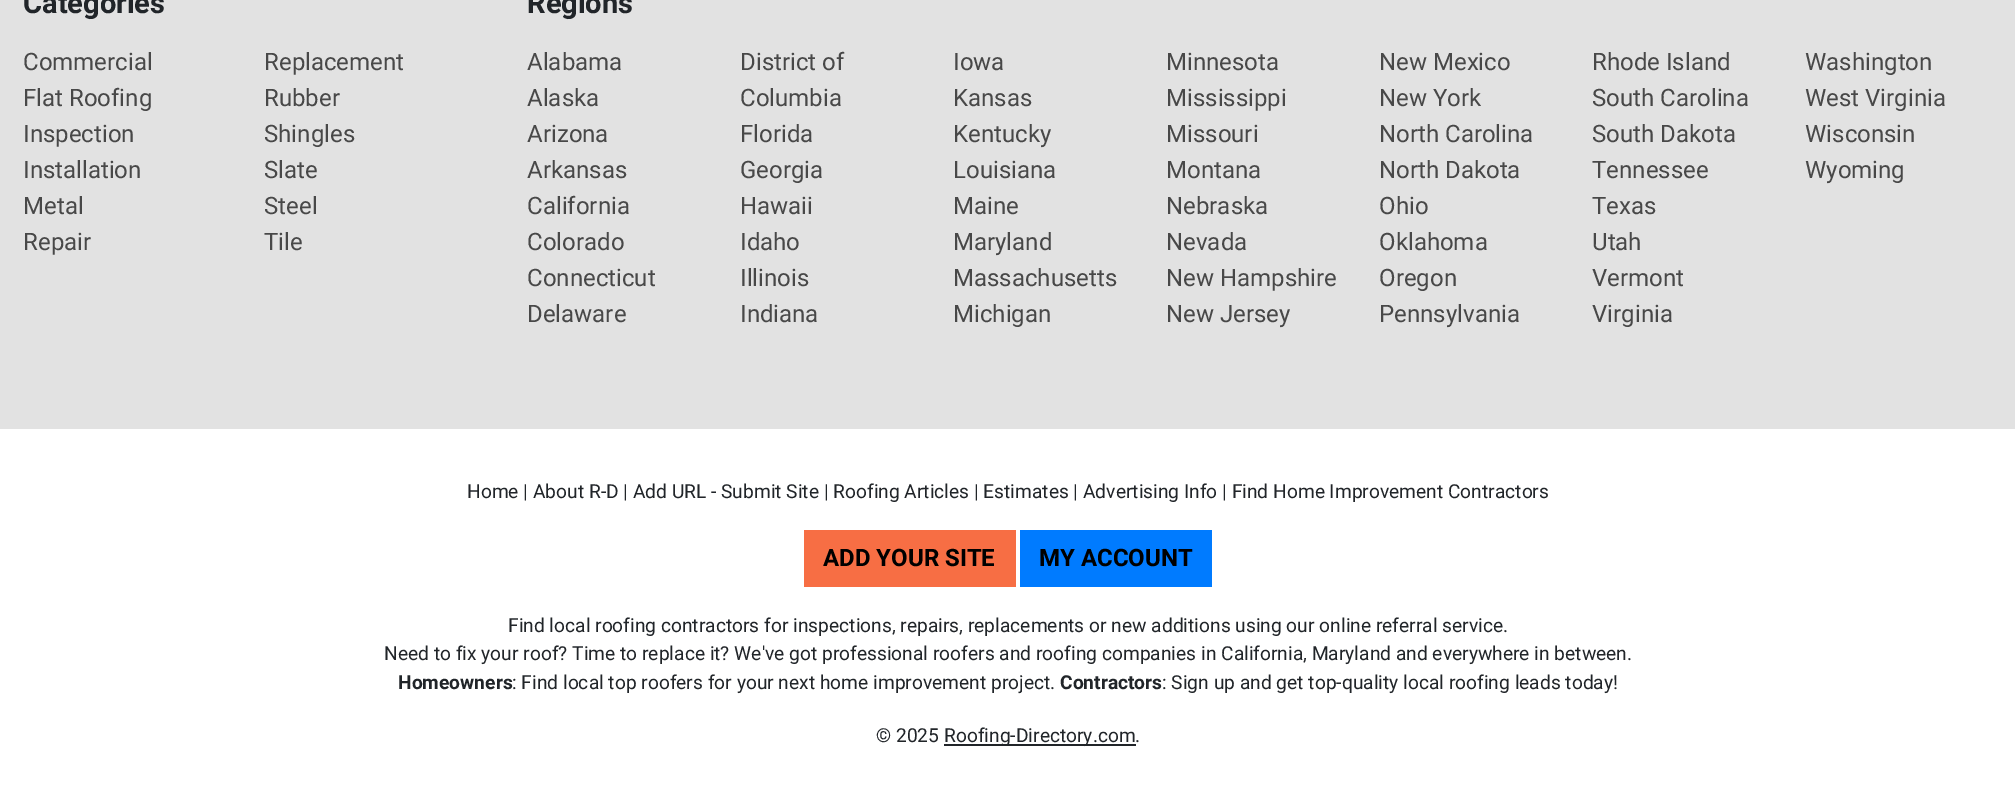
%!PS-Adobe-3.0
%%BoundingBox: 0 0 2015 797
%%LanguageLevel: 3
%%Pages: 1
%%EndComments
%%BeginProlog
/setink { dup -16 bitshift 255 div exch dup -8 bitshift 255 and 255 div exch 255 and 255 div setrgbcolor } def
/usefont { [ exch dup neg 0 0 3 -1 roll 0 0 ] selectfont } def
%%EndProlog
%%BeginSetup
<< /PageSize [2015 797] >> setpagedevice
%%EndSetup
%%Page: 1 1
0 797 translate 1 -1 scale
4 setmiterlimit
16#FFFFFF setink
0 0 2015 797 rectfill
16#E2E2E2 setink
0 0 2015 429 rectfill
/Roboto-Bold 29 usefont
16#212529 setink
23 13 moveto (Categories) show
/Roboto-Regular 24 usefont
16#484848 setink
[
    [(Commercial) 23 70]
    [(Replacement) 264 70]
    [(Flat Roofing) 23 106]
    [(Rubber) 264 106]
    [(Inspection) 23 142]
    [(Shingles) 264 142]
    [(Installation) 23 178]
    [(Slate) 264 178]
    [(Metal) 23 214]
    [(Steel) 264 214]
    [(Repair) 23 250]
    [(Tile) 264 250]
] { aload pop moveto show } forall
/Roboto-Bold 29 usefont
16#212529 setink
527 13 moveto (Regions) show
/Roboto-Regular 24 usefont
16#484848 setink
[
    [(Alabama) 527 70]
    [(District of) 740 70]
    [(Columbia) 740 106]
    [(Iowa) 953 70]
    [(Minnesota) 1166 70]
    [(New Mexico) 1379 70]
    [(Rhode Island) 1592 70]
    [(Washington) 1805 70]
    [(Alaska) 527 106]
    [(Kansas) 953 106]
    [(Mississippi) 1166 106]
    [(New York) 1379 106]
    [(South Carolina) 1592 106]
    [(West Virginia) 1805 106]
    [(Arizona) 527 142]
    [(Florida) 740 142]
    [(Kentucky) 953 142]
    [(Missouri) 1166 142]
    [(North Carolina) 1379 142]
    [(South Dakota) 1592 142]
    [(Wisconsin) 1805 142]
    [(Arkansas) 527 178]
    [(Georgia) 740 178]
    [(Louisiana) 953 178]
    [(Montana) 1166 178]
    [(North Dakota) 1379 178]
    [(Tennessee) 1592 178]
    [(Wyoming) 1805 178]
    [(California) 527 214]
    [(Hawaii) 740 214]
    [(Maine) 953 214]
    [(Nebraska) 1166 214]
    [(Ohio) 1379 214]
    [(Texas) 1592 214]
    [(Colorado) 527 250]
    [(Idaho) 740 250]
    [(Maryland) 953 250]
    [(Nevada) 1166 250]
    [(Oklahoma) 1379 250]
    [(Utah) 1592 250]
    [(Connecticut) 527 286]
    [(Illinois) 740 286]
    [(Massachusetts) 953 286]
    [(New Hampshire) 1166 286]
    [(Oregon) 1379 286]
    [(Vermont) 1592 286]
    [(Delaware) 527 322]
    [(Indiana) 740 322]
    [(Michigan) 953 322]
    [(New Jersey) 1166 322]
    [(Pennsylvania) 1379 322]
    [(Virginia) 1592 322]
] { aload pop moveto show } forall
/Roboto-Regular 19.2 usefont
16#212529 setink
467 498 moveto (Home | About R-D | Add URL - Submit Site | Roofing Articles | Estimates | Advertising Info | Find Home Improvement Contractors) show
16#F76E44 setink
804 530 212 57 rectfill
/Roboto-Bold 24 usefont
16#000000 setink
823 566 moveto (ADD YOUR SITE) show
16#007BFF setink
1020 530 192 57 rectfill
16#000000 setink
1039 566 moveto (MY ACCOUNT) show
/Roboto-Regular 19.2 usefont
16#212529 setink
508 632 moveto (Find local roofing contractors for inspections, repairs, replacements or new additions using our online referral service.) show
384 660 moveto (Need to fix your roof? Time to replace it? We've got professional roofers and roofing companies in California, Maryland and everywhere in between.) show
/Roboto-Bold 19.2 usefont
398 689 moveto (Homeowners) show
/Roboto-Regular 19.2 usefont
512 689 moveto (: Find local top roofers for your next home improvement project.) show
/Roboto-Bold 19.2 usefont
1060 689 moveto (Contractors) show
/Roboto-Regular 19.2 usefont
1162 689 moveto (: Sign up and get top-quality local roofing leads today!) show
876 742 moveto (© 2025) show
944 744 192 2 rectfill
944 742 moveto (Roofing-Directory.com.) show
showpage
%%EOF
